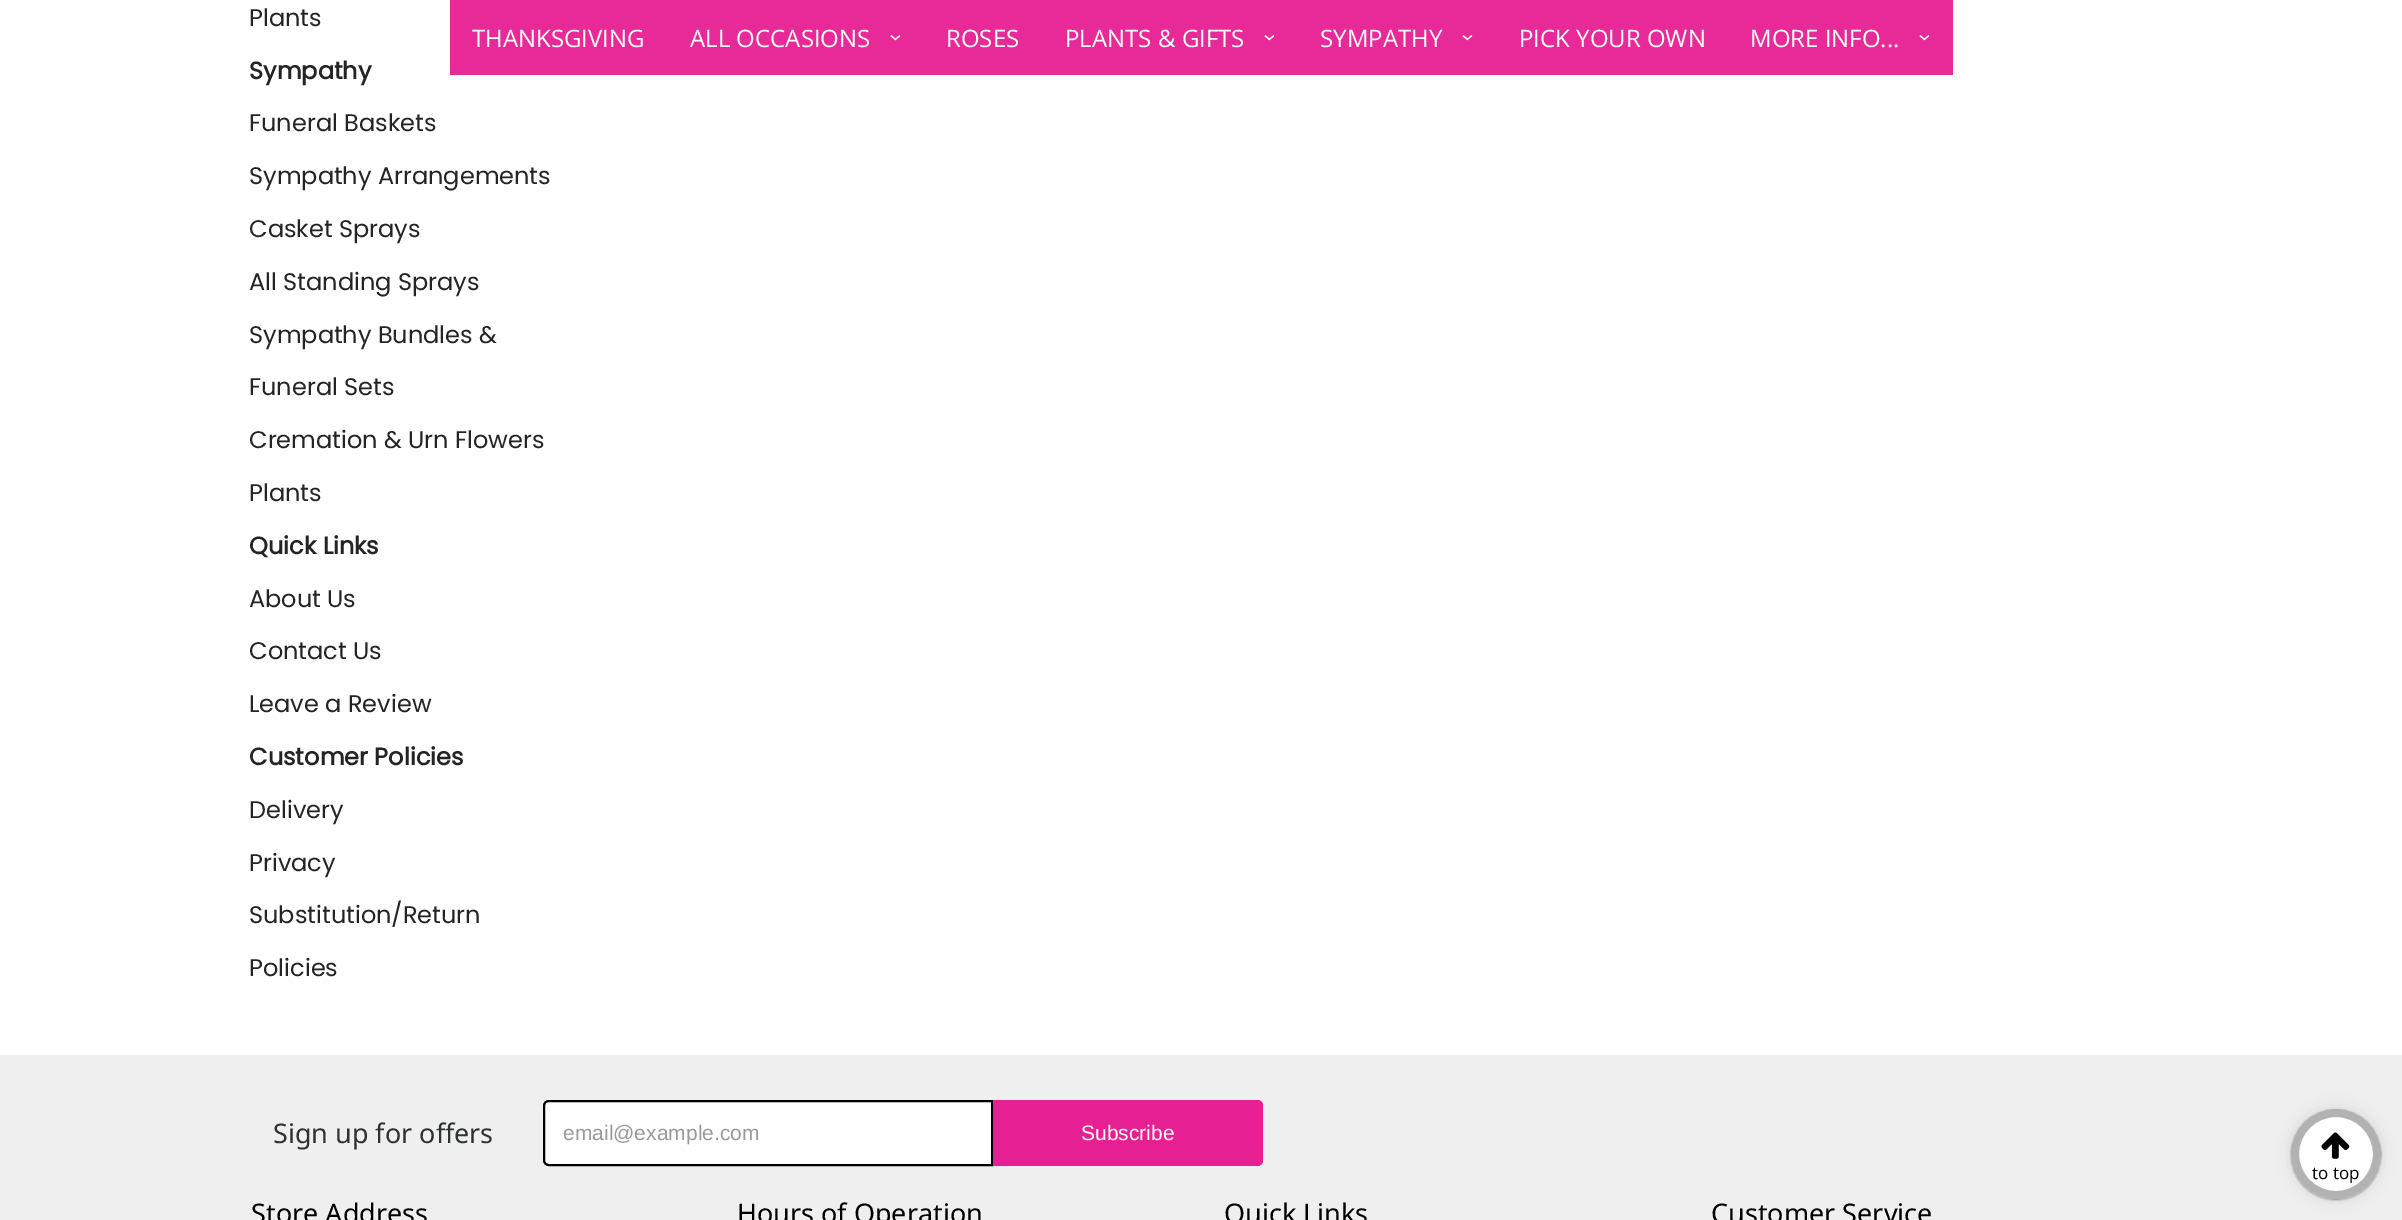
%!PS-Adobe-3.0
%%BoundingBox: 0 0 2402 1220
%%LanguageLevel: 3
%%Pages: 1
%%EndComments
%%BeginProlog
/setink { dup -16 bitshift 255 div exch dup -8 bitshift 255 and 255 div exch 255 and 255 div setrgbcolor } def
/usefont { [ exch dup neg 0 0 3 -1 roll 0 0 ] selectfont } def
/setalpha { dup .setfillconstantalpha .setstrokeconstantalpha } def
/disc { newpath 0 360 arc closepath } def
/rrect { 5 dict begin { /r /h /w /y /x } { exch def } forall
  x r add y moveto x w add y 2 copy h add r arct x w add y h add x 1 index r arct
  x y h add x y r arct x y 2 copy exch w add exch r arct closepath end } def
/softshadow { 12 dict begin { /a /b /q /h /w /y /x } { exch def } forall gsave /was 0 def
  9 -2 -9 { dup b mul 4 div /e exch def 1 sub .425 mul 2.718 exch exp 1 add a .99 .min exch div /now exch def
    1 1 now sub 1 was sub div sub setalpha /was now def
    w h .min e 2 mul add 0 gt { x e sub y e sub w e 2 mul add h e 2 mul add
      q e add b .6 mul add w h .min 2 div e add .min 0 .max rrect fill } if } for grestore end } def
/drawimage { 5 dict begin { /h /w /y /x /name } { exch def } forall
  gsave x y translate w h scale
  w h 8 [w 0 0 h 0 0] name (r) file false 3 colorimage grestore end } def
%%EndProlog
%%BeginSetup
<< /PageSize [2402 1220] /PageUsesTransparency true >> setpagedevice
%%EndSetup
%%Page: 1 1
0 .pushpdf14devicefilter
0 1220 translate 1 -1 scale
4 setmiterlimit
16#FFFFFF setink
0 0 2402 1220 rectfill
/Poppins-Regular 24 usefont
16#242424 setink
249 26 moveto (Plants) show
/Poppins-Bold 24 usefont
249 79 moveto (Sympathy) show
/Poppins-Regular 24 usefont
[
    [(Funeral Baskets) 249 131]
    [(Sympathy Arrangements) 249 184]
    [(Casket Sprays) 249 237]
    [(All Standing Sprays) 249 290]
    [(Sympathy Bundles &) 249 343]
    [(Funeral Sets) 249 395]
    [(Cremation & Urn Flowers) 249 448]
    [(Plants) 249 501]
] { aload pop moveto show } forall
/Poppins-Bold 24 usefont
249 554 moveto (Quick Links) show
/Poppins-Regular 24 usefont
[
    [(About Us) 249 607]
    [(Contact Us) 249 659]
    [(Leave a Review) 249 712]
] { aload pop moveto show } forall
/Poppins-Bold 24 usefont
249 765 moveto (Customer Policies) show
/Poppins-Regular 24 usefont
[
    [(Delivery) 249 818]
    [(Privacy) 249 871]
    [(Substitution/Return) 249 923]
    [(Policies) 249 976]
] { aload pop moveto show } forall
16#EFEFEF setink
0 1055 2402 165 rectfill
16#000000 setink
2291 1109 90 90 45 7.5 0.1 softshadow
2291 1110 90 90 45 1 0.3 softshadow
16#FFFFFF setink
2336 1154 45 disc fill
0.3 setalpha
16#000000 setink
8 setlinewidth
2336 1154 41 disc stroke
1 setalpha
(img1.raw) 2321 1132 29 27 drawimage
/OpenSans-Regular 17 usefont
2312 1179 moveto (to top) show
16#E72A98 setink
450 0 1503 75 rectfill
/OpenSans-Regular 24 usefont
16#FFFFFF setink
472 47 moveto (THANKSGIVING) show
690 47 moveto (ALL OCCASIONS) show
gsave 889 34 translate 90 rotate 0 0 moveto (›) show grestore
946 47 moveto (ROSES) show
1065 47 moveto (PLANTS & GIFTS) show
gsave 1263 34 translate 90 rotate 0 0 moveto (›) show grestore
1320 47 moveto (SYMPATHY) show
gsave 1461 34 translate 90 rotate 0 0 moveto (›) show grestore
1519 47 moveto (PICK YOUR OWN) show
1750 47 moveto (MORE INFO...) show
gsave 1918 34 translate 90 rotate 0 0 moveto (›) show grestore
/NotoSans-Regular 27 usefont
16#2F3232 setink
273 1143 moveto (Sign up for offers) show
16#FFFFFF setink
549 1101 moveto 992 1101 lineto 992 1165 lineto 549 1165 lineto 546 1165 544 1163 544 1160 curveto 544 1106 lineto 544 1103 546 1101 549 1101 curveto closepath gsave fill grestore
16#000000 setink
2 setlinewidth
stroke
/LiberationSans-Regular 21 usefont
16#999999 setink
563 1140 moveto (email@example.com) show
16#E61F93 setink
993 1100 moveto 1257 1100 lineto 1260.5 1100 1263 1102.5 1263 1106 curveto 1263 1160 lineto 1263 1163.5 1260.5 1166 1257 1166 curveto 993 1166 lineto closepath fill
993 1100 moveto 1257 1100 lineto 1260 1100 1263 1102 1263 1106 curveto 1263 1160 lineto 1263 1163 1260 1166 1257 1166 curveto 993 1166 lineto closepath 993 1101 moveto 1257 1101 lineto 1259 1101 1262 1103 1262 1106 curveto 1262 1160 lineto 1262 1162 1259 1164 1257 1164 curveto 993 1164 lineto closepath eofill
16#FFFFFF setink
1081 1140 moveto (Subscribe) show
/NotoSans-Regular 27 usefont
16#000000 setink
[
    [(Store Address) 251 1223]
    [(Hours of Operation) 737 1223]
    [(Quick Links) 1224 1223]
    [(Customer Service) 1711 1223]
] { aload pop moveto show } forall
.poppdf14devicefilter showpage
%%EOF
